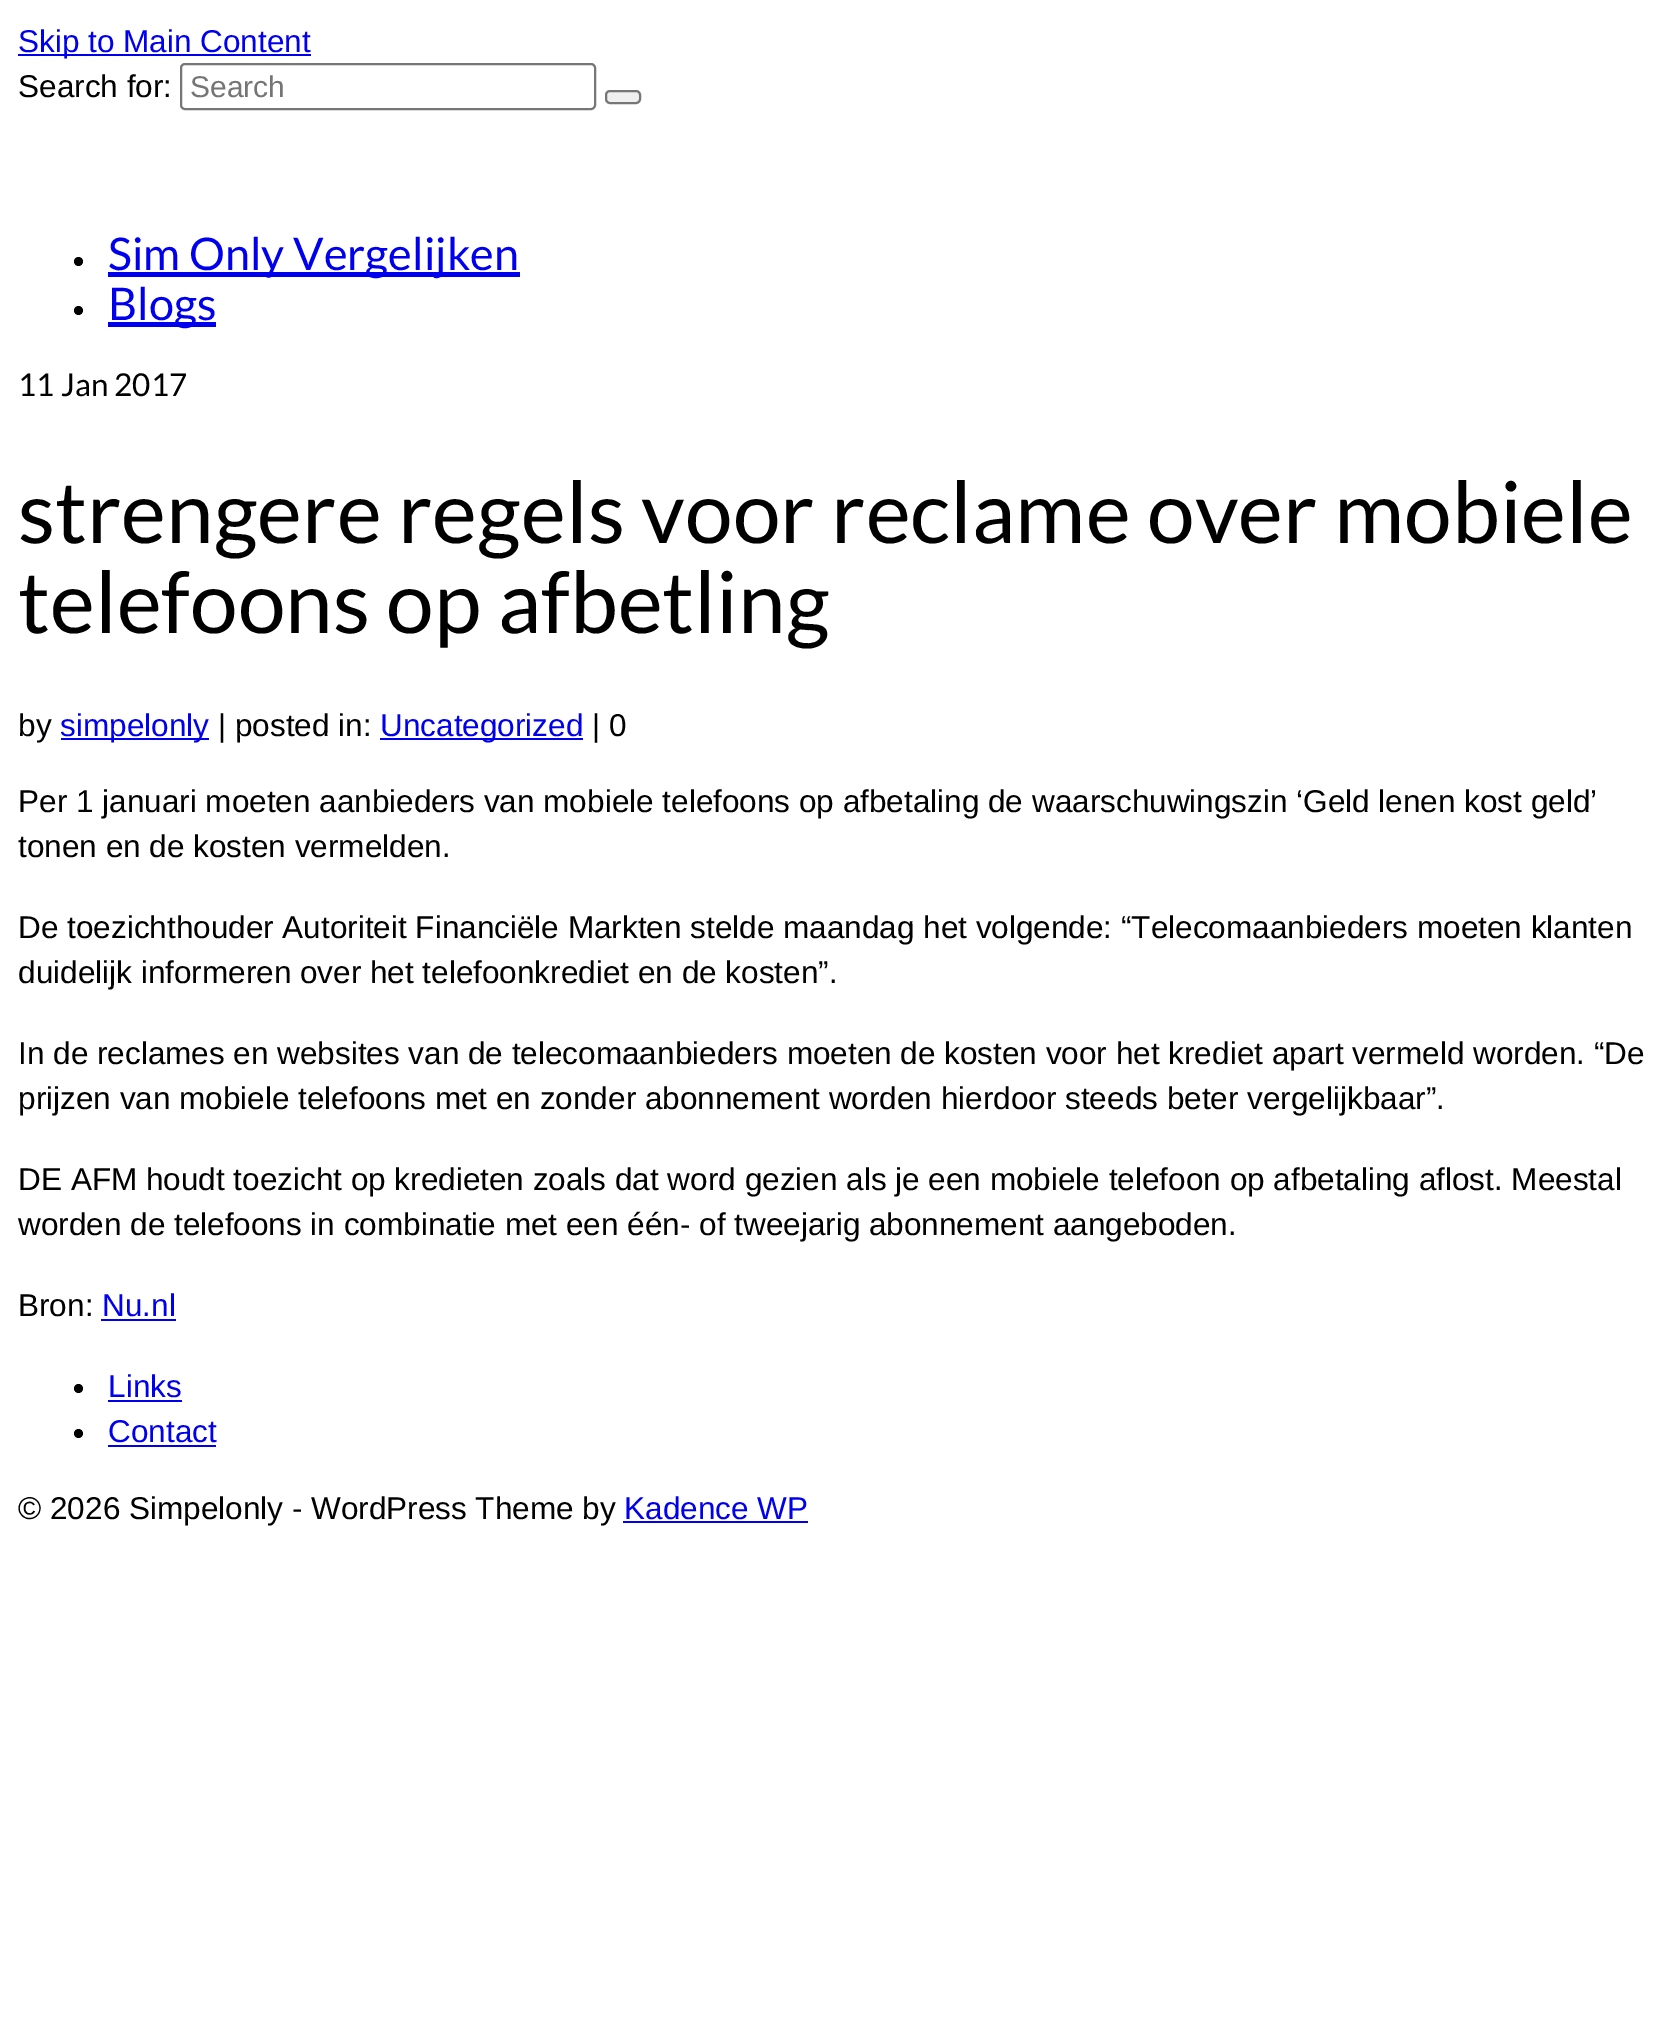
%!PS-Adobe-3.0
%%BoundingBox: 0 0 1668 2022
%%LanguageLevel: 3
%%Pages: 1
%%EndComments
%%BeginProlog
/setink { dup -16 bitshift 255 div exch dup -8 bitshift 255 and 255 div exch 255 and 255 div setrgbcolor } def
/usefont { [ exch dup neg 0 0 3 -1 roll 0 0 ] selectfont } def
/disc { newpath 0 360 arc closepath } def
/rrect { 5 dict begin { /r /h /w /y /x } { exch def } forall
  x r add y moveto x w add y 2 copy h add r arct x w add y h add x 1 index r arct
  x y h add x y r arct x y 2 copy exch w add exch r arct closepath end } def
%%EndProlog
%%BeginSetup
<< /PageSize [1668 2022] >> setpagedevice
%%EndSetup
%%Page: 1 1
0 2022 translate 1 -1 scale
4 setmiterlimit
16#FFFFFF setink
0 0 1668 2022 rectfill
16#0000EE setink
18 54 293 2 rectfill
/LiberationSans-Regular 31.5 usefont
18 52 moveto (Skip to Main Content) show
16#000000 setink
18 97 moveto (Search for:) show
16#767676 setink
2 setlinewidth
181 64 414 45 4 rrect stroke
/LiberationSans-Regular 30 usefont
16#757575 setink
190 97 moveto (Search) show
16#EFEFEF setink
606 91 34 12 4 rrect gsave fill grestore
16#767676 setink
stroke
16#000000 setink
78.5 261.5 4.5 disc fill
16#0000EE setink
108 272 412 5 rectfill
/Lato-Regular 45 usefont
108 270 moveto (Sim Only Vergelijken) show
16#000000 setink
78.5 310.5 4.5 disc fill
16#0000EE setink
108 322 108 5 rectfill
108 320 moveto (Blogs) show
/Lato-Regular 31.5 usefont
16#000000 setink
18 396 moveto (11 Jan 2017) show
/Lato-Regular 85.5 usefont
18 543 moveto (strengere regels voor reclame over mobiele) show
18 633 moveto (telefoons op afbetling) show
/LiberationSans-Regular 31.5 usefont
18 736 moveto (by) show
16#0000EE setink
61 738 148 2 rectfill
60 736 moveto (simpelonly) show
16#000000 setink
218 736 moveto (| posted in:) show
16#0000EE setink
380 738 203 2 rectfill
380 736 moveto (Uncategorized) show
16#000000 setink
[
    [(| 0) 592 736]
    [(Per 1 januari moeten aanbieders van mobiele telefoons op afbetaling de waarschuwingszin ‘Geld lenen kost geld’) 18 812]
    [(tonen en de kosten vermelden.) 18 857]
    [(De toezichthouder Autoriteit Financiële Markten stelde maandag het volgende: “Telecomaanbieders moeten klanten) 18 938]
    [(duidelijk informeren over het telefoonkrediet en de kosten”.) 18 983]
    [(In de reclames en websites van de telecomaanbieders moeten de kosten voor het krediet apart vermeld worden. “De) 18 1064]
    [(prijzen van mobiele telefoons met en zonder abonnement worden hierdoor steeds beter vergelijkbaar”.) 18 1109]
    [(DE AFM houdt toezicht op kredieten zoals dat word gezien als je een mobiele telefoon op afbetaling aflost. Meestal) 18 1190]
    [(worden de telefoons in combinatie met een één- of tweejarig abonnement aangeboden.) 18 1235]
    [(Bron:) 18 1316]
] { aload pop moveto show } forall
16#0000EE setink
102 1316 moveto (Nu.nl) show
101 1319 75 2 rectfill
16#000000 setink
78.5 1388.5 4.5 disc fill
16#0000EE setink
108 1397 moveto (Links) show
108 1400 74 2 rectfill
16#000000 setink
78.5 1433.5 4.5 disc fill
16#0000EE setink
108 1442 moveto (Contact) show
108 1445 108 2 rectfill
16#000000 setink
18 1519 moveto (© 2026 Simpelonly - WordPress Theme by) show
16#0000EE setink
624 1519 moveto (Kadence WP) show
623 1521 185 2 rectfill
showpage
%%EOF
